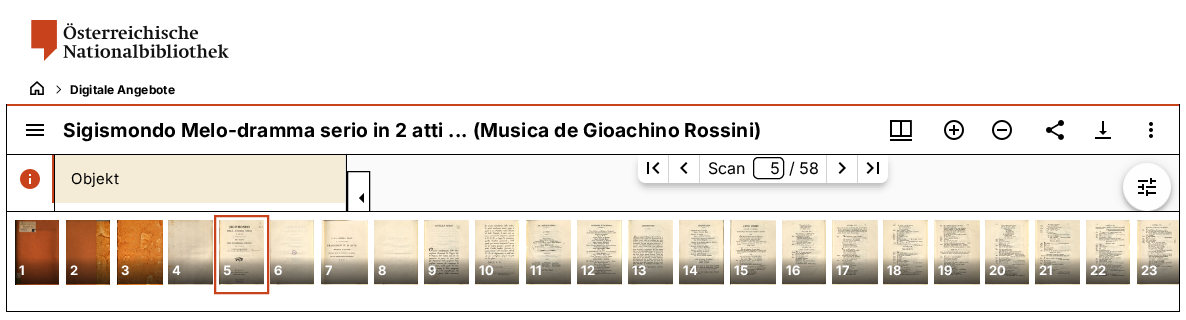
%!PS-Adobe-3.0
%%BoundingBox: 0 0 1186 320
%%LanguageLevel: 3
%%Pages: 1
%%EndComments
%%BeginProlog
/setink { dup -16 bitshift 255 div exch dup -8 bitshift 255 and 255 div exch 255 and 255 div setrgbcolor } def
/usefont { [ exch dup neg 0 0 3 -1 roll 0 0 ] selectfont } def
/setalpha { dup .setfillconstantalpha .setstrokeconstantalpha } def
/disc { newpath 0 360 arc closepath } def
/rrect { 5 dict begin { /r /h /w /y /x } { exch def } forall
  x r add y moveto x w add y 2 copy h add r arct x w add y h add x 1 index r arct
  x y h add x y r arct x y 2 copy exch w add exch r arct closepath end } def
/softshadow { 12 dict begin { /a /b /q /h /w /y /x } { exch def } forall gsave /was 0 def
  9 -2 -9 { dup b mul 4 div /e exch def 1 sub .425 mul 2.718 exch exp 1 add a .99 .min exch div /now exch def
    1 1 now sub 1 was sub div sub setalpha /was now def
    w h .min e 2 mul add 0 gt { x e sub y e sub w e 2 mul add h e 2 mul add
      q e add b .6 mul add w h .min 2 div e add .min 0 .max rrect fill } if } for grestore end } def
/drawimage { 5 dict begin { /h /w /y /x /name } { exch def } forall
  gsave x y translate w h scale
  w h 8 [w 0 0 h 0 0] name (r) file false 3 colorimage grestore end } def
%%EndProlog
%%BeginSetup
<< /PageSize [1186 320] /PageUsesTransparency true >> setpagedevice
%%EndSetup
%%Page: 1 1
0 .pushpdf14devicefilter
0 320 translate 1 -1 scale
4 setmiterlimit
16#FFFFFF setink
0 0 1186 320 rectfill
(img1.raw) 31 20 198 41 drawimage
(img2.raw) 30 81 14 14 drawimage
16#000000 setink
57 85.5 moveto 61 89.5 lineto 60.5 90 lineto 56.5 86 lineto closepath fill
60.5 89 moveto 61 89.5 lineto 57 93.5 lineto 56.5 93 lineto closepath fill
/Inter-Bold 12 usefont
70 94 moveto (Digitale Angebote) show
[
    [1179 104 1 208 16#000000]
    [6 311 1174 1 16#000000]
    [6 104 1 208 16#000000]
    [347 155 832 56 16#FAFAFA]
] { aload pop setink rectfill } forall
16#000000 setink
639 159 248 28 7 3.5 0.25 softshadow
16#FFFFFF setink
638 153 moveto 888 153 lineto 888 175 lineto 888 179.5 884.5 183 880 183 curveto 646 183 lineto 641.5 183 638 179.5 638 175 curveto closepath fill
[
    [699 153 1 30 16#D3D3D3]
    [668 153 1 30 16#D3D3D3]
    [857 153 1 30 16#D3D3D3]
    [826 153 1 30 16#D3D3D3]
    [668 153 190 1 16#FFFFFF]
] { aload pop setink rectfill } forall
gsave
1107 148 moveto 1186 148 lineto 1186 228 lineto 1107 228 lineto closepath 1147 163 moveto 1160.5 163 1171 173.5 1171 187 curveto 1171 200.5 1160.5 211 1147 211 curveto 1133.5 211 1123 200.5 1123 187 curveto 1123 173.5 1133.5 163 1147 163 curveto closepath eoclip newpath
16#000000 setink
1123 164 48 48 24 5 0.12 softshadow
grestore
16#000000 setink
7 154 1172 1 rectfill
16#C8421C setink
7 104 1172 2 rectfill
(img3.raw) 26 124 18 12 drawimage
/Inter-Bold 19.2 usefont
16#000000 setink
63 137 moveto 0.2 0 (Sigismondo Melo-dramma serio in 2 atti ... \(Musica de Gioachino Rossini\)) ashow
(img4.raw) 890 120 22 21 drawimage
(img5.raw) 944 120 20 20 drawimage
(img6.raw) 992 120 20 20 drawimage
(img7.raw) 1046 120 18 20 drawimage
(img8.raw) 1095 121 16 18 drawimage
(img9.raw) 1149 122 4 16 drawimage
54 155 1 56 rectfill
16#C8421C setink
52 155 2 48 rectfill
(img10.raw) 20 169 20 20 drawimage
(img11.raw) 647 162 13 12 drawimage
(img12.raw) 680 162 8 12 drawimage
/Inter-Regular 16 usefont
16#000000 setink
708 174 moveto (Scan) show
753.5 157.5 30 21 4.5 rrect stroke
770 174 moveto (5) show
789 174 moveto (/ 58) show
(img13.raw) 838 162 8 12 drawimage
(img14.raw) 866 162 13 12 drawimage
gsave
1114 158 moveto 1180 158 lineto 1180 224 lineto 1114 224 lineto closepath 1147 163 moveto 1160.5 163 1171 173.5 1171 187 curveto 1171 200.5 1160.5 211 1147 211 curveto 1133.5 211 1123 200.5 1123 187 curveto 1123 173.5 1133.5 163 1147 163 curveto closepath eoclip newpath
1123 167 48 48 24 2.5 0.14 softshadow
grestore
gsave
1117 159 moveto 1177 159 lineto 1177 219 lineto 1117 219 lineto closepath 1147 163 moveto 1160.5 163 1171 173.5 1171 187 curveto 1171 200.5 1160.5 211 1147 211 curveto 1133.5 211 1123 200.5 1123 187 curveto 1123 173.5 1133.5 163 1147 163 curveto closepath eoclip newpath
1124 166 46 46 23 2 0.2 softshadow
grestore
0.8 setalpha
16#FFFFFF setink
1147 187 24 disc fill
1 setalpha
(img15.raw) 1138 178 18 18 drawimage
[
    [346 155 1 56 16#000000]
    [345 155 1 56 16#E0E0E0]
    [55 155 290 48 16#F5ECD8]
] { aload pop setink rectfill } forall
/Inter-Regular 15 usefont
16#000000 setink
71 184 moveto 0.25 0 (Objekt) ashow
16#FFFFFF setink
348 172 21 39 rectfill
16#000000 setink
347.5 171.5 22 47 rectstroke
364 193 moveto 359 198 lineto 364 203 lineto closepath fill
16#FFFFFF setink
347 212 820 8 rectfill
16#000000 setink
7 211 1172 1 rectfill
(img16.raw) 15 220 44 65 drawimage
/Inter-Bold 13 usefont
16#FFFFFF setink
19 275 moveto (1) show
(img17.raw) 66 220 44 65 drawimage
70 275 moveto (2) show
(img18.raw) 117 220 46 65 drawimage
121 275 moveto (3) show
(img19.raw) 168 220 45 65 drawimage
172 275 moveto (4) show
16#C8421C setink
2 setlinewidth
215 216 53 77 rectstroke
(img20.raw) 219 220 45 65 drawimage
16#FFFFFF setink
223 275 moveto (5) show
(img21.raw) 270 220 44 65 drawimage
274 275 moveto (6) show
(img22.raw) 321 220 47 65 drawimage
325 275 moveto (7) show
(img23.raw) 374 220 44 65 drawimage
378 275 moveto (8) show
(img24.raw) 424 220 45 65 drawimage
428 275 moveto (9) show
(img25.raw) 475 220 44 65 drawimage
479 275 moveto (10) show
(img26.raw) 526 220 45 65 drawimage
530 275 moveto (11) show
(img27.raw) 577 220 45 65 drawimage
581 275 moveto (12) show
(img28.raw) 628 220 45 65 drawimage
632 275 moveto (13) show
(img29.raw) 679 220 45 65 drawimage
683 275 moveto (14) show
(img30.raw) 730 220 46 65 drawimage
734 275 moveto (15) show
(img31.raw) 782 220 44 65 drawimage
786 275 moveto (16) show
(img32.raw) 832 220 46 65 drawimage
836 275 moveto (17) show
(img33.raw) 883 220 45 65 drawimage
887 275 moveto (18) show
(img34.raw) 934 220 46 65 drawimage
938 275 moveto (19) show
(img35.raw) 985 220 44 65 drawimage
989 275 moveto (20) show
(img36.raw) 1035 220 45 65 drawimage
1039 275 moveto (21) show
(img37.raw) 1086 220 44 65 drawimage
1090 275 moveto (22) show
(img38.raw) 1137 220 42 65 drawimage
1141 275 moveto (23) show
.poppdf14devicefilter showpage
%%EOF
